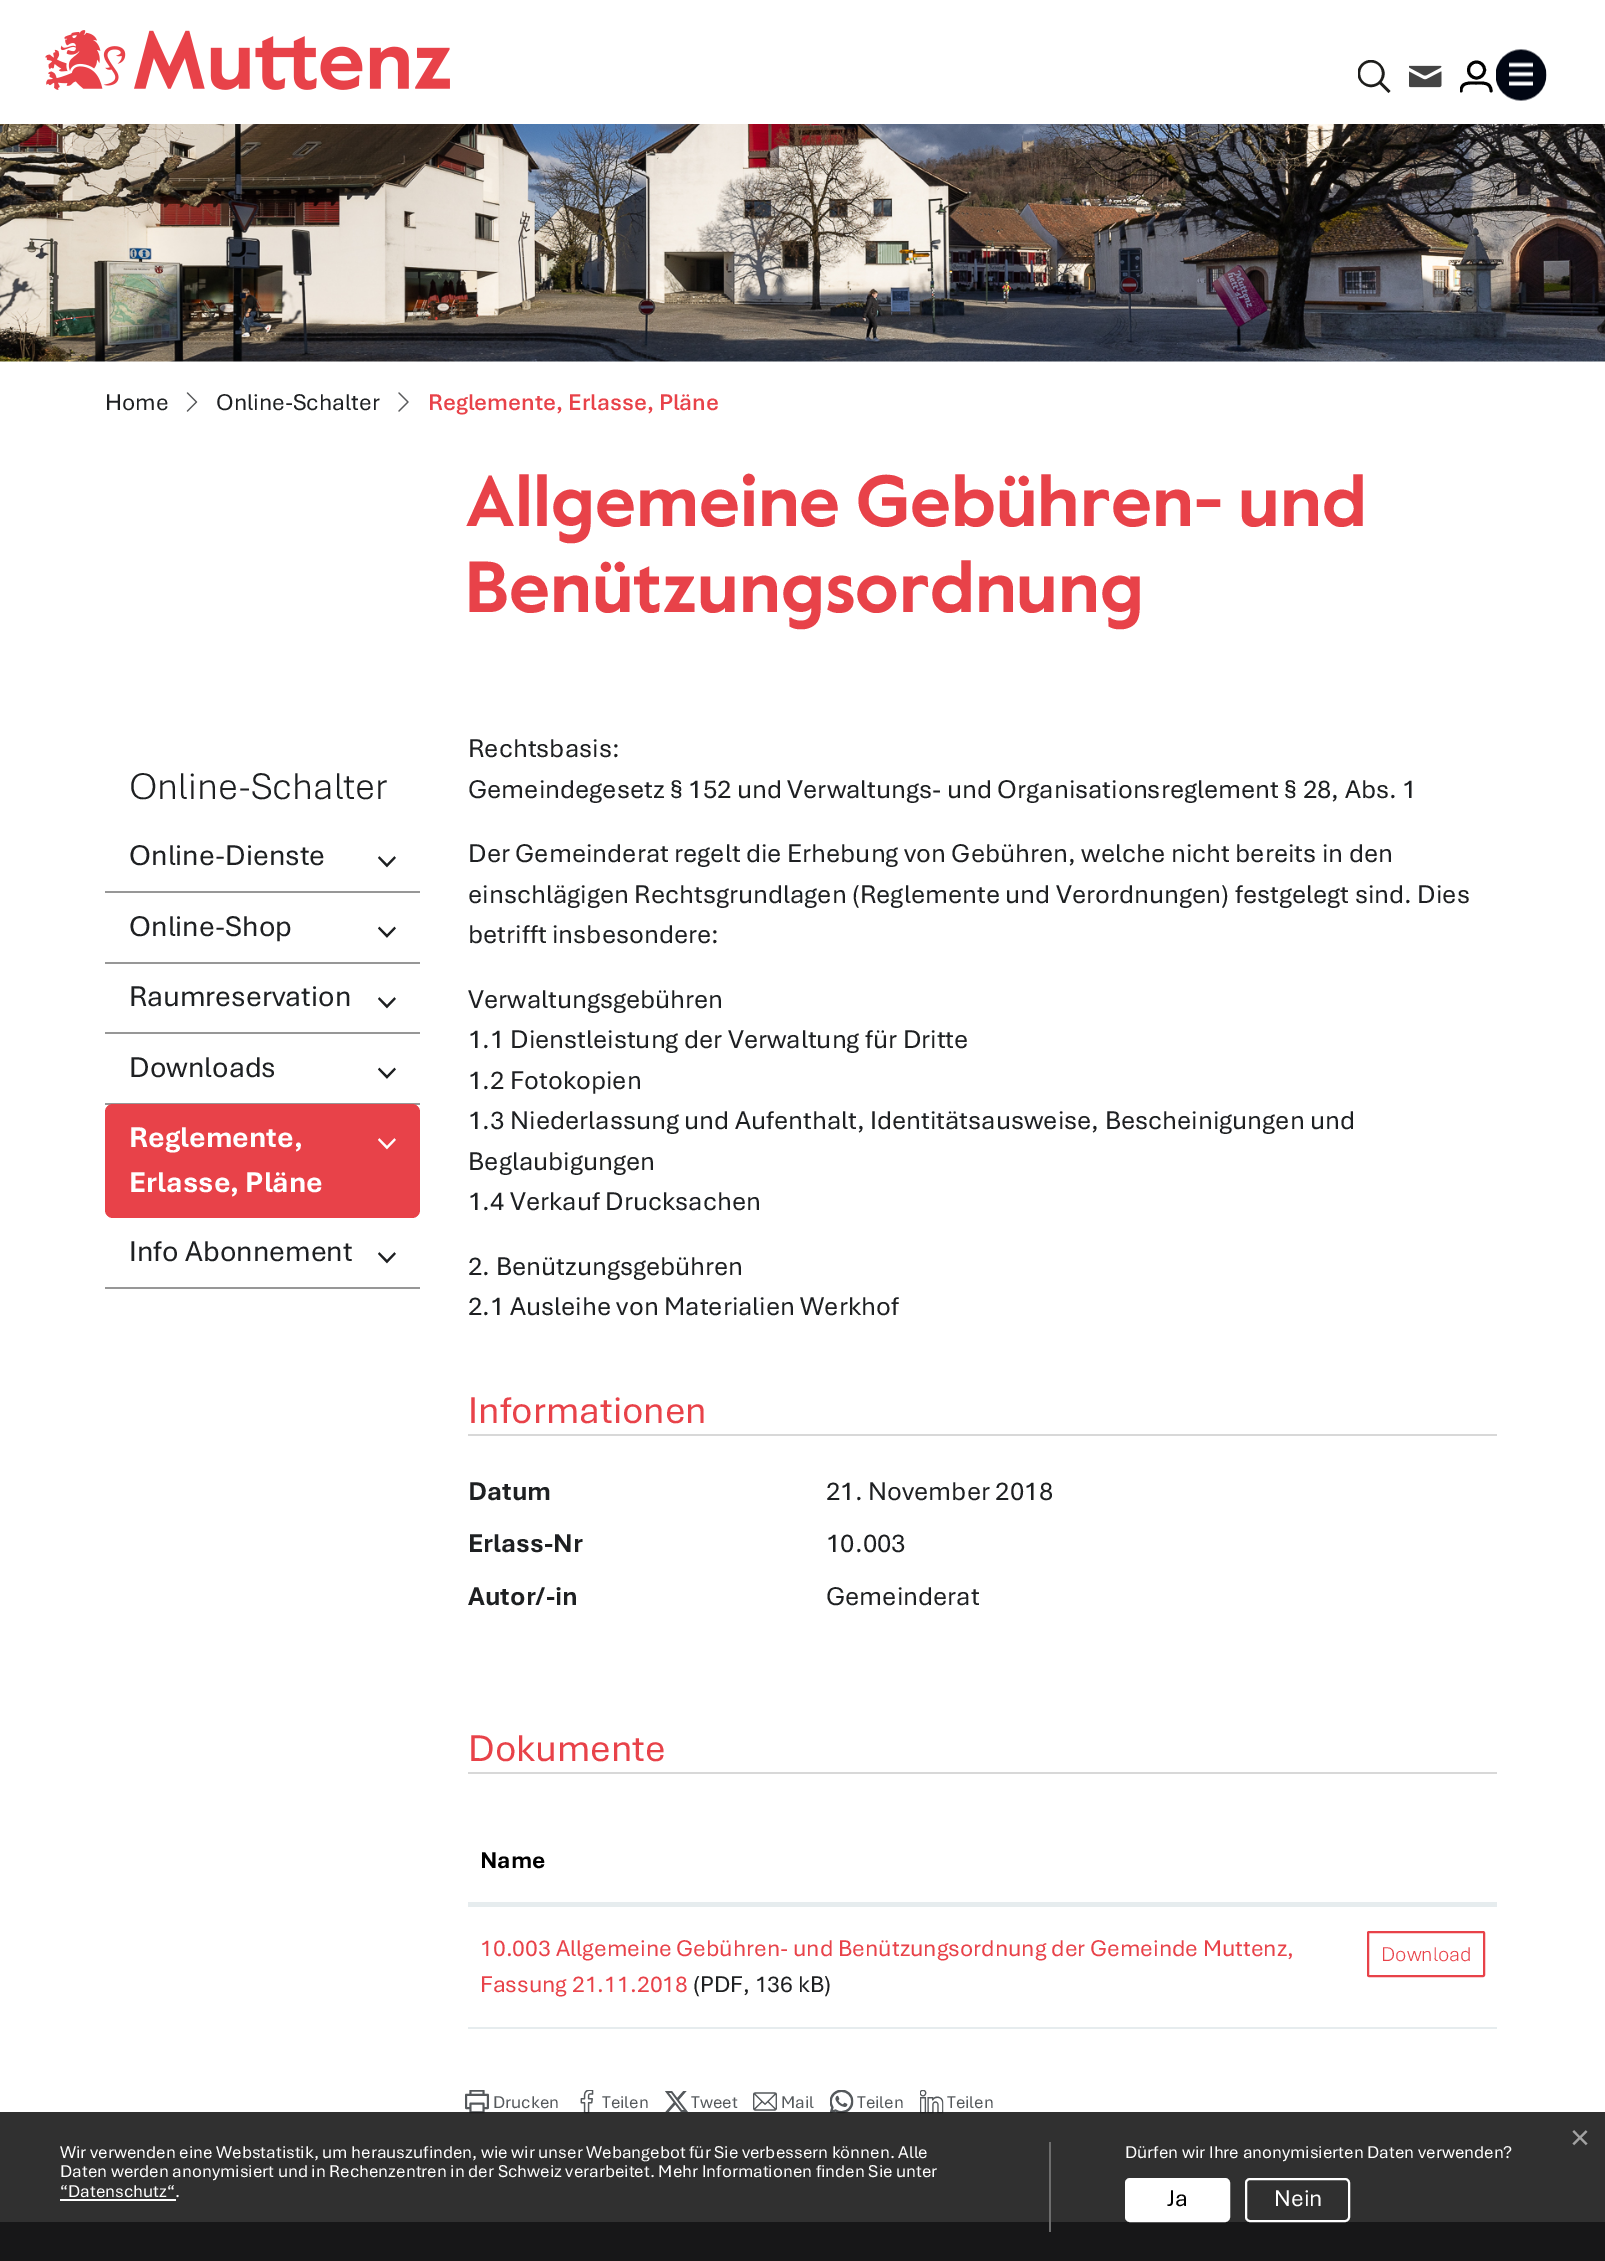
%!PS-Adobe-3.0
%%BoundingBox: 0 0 1605 2261
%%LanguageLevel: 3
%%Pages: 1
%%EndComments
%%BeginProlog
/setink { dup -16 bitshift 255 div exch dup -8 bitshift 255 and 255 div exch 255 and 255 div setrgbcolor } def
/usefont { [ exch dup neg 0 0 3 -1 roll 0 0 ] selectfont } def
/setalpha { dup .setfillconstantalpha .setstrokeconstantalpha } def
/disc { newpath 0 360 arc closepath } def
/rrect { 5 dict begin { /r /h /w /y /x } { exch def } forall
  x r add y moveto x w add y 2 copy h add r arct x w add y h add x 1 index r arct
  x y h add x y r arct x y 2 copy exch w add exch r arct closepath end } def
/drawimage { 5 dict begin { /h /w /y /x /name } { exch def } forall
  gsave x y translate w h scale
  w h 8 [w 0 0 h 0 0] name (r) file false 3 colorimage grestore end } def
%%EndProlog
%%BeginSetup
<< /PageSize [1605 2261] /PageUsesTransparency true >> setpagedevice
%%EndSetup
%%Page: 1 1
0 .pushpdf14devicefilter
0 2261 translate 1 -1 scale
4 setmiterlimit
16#FFFFFF setink
0 0 1605 2261 rectfill
(img1.raw) 45 30 405 60 drawimage
gsave
1358 60 33 33 rectclip
16#1D1D1B setink
1388.5 93 moveto 1379.5 84 lineto 1366.5 94.5 1349.5 76 1361.5 64 curveto 1373.5 52 1392 69 1381.5 82 curveto 1390.5 91 lineto closepath 1371 62.5 moveto 1356.5 62.5 1356.5 84.5 1371 84.5 curveto 1385.5 84.5 1385.5 62.5 1371 62.5 curveto closepath fill
grestore
(img2.raw) 1409 65 33 23 drawimage
16#000000 setink
2.9 setlinewidth
1476.5 70 8 disc stroke
gsave
1460 60 33 33 rectclip
1 setlinecap
1 setlinejoin
1461 91 moveto 1461 82 1469.5 83 1476 83 curveto 1482.5 83 1491 82 1491 91 curveto stroke
grestore
(img3.raw) 1496 49 51 52 drawimage
(img4.raw) 0 124 1605 238 drawimage
/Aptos-Regular 24 usefont
16#1E2022 setink
105 410 moveto (Home) show
(img5.raw) 186 392 12 20 drawimage
216 410 moveto (Online-Schalter) show
(img6.raw) 398 392 11 20 drawimage
/Aptos-SemiBold 24 usefont
16#E84249 setink
428 410 moveto (Reglemente, Erlasse, Pläne) show
/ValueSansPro-Bold 72 usefont
465 526 moveto (Allgemeine Gebühren- und) show
465 612 moveto (Benützungsordnung) show
/Aptos-Light 39 usefont
16#1E2022 setink
129 799 moveto (Online-Schalter) show
16#979797 setink
105 891 315 2 rectfill
/Aptos-Regular 30 usefont
16#1E2022 setink
129 865 moveto (Online-Dienste) show
(img7.raw) 378 856 18 12 drawimage
16#979797 setink
105 962 315 2 rectfill
16#1E2022 setink
129 936 moveto (Online-Shop) show
(img8.raw) 378 926 18 12 drawimage
16#979797 setink
105 1032 315 2 rectfill
16#1E2022 setink
129 1006 moveto (Raumreservation) show
(img7.raw) 378 997 18 12 drawimage
16#979797 setink
105 1103 315 2 rectfill
16#1E2022 setink
129 1077 moveto (Downloads) show
(img8.raw) 378 1067 18 12 drawimage
16#E84249 setink
105 1104 315 114 8 rrect fill
/Aptos-Bold 30 usefont
16#FFFFFF setink
129 1147 moveto (Reglemente,) show
(img9.raw) 378 1138 18 12 drawimage
129 1192 moveto (Erlasse, Pläne) show
16#979797 setink
105 1287 315 2 rectfill
/Aptos-Regular 30 usefont
16#1E2022 setink
129 1261 moveto (Info Abonnement) show
(img7.raw) 378 1252 18 12 drawimage
/Aptos-Regular 27 usefont
[
    [(Rechtsbasis:) 468 757]
    [(Gemeindegesetz § 152 und Verwaltungs- und Organisationsreglement § 28, Abs. 1) 468 798]
    [(Der Gemeinderat regelt die Erhebung von Gebühren, welche nicht bereits in den) 468 862]
    [(einschlägigen Rechtsgrundlagen \(Reglemente und Verordnungen\) festgelegt sind. Dies) 468 903]
    [(betrifft insbesondere:) 468 943]
    [(Verwaltungsgebühren) 468 1008]
    [(1.1 Dienstleistung der Verwaltung für Dritte) 468 1048]
    [(1.2 Fotokopien) 468 1089]
    [(1.3 Niederlassung und Aufenthalt, Identitätsausweise, Bescheinigungen und) 468 1129]
    [(Beglaubigungen) 468 1170]
    [(1.4 Verkauf Drucksachen) 468 1210]
    [(2. Benützungsgebühren) 468 1275]
    [(2.1 Ausleihe von Materialien Werkhof) 468 1315]
] { aload pop moveto show } forall
16#D8D8D8 setink
468 1434 1029 2 rectfill
/Aptos-Regular 39 usefont
16#E84249 setink
468 1423 moveto (Informationen) show
/Aptos-Bold 27 usefont
16#1E2022 setink
468 1500 moveto (Datum) show
/Aptos-Regular 27 usefont
826 1500 moveto (21. November 2018) show
/Aptos-Bold 27 usefont
468 1552 moveto (Erlass-Nr) show
/Aptos-Regular 27 usefont
826 1552 moveto (10.003) show
/Aptos-Bold 27 usefont
468 1605 moveto (Autor/-in) show
/Aptos-Regular 27 usefont
826 1605 moveto (Gemeinderat) show
16#D8D8D8 setink
468 1772 1029 2 rectfill
/Aptos-Regular 39 usefont
16#E84249 setink
468 1761 moveto (Dokumente) show
16#E6ECEE setink
468 2027 1029 2 rectfill
468 1902 1029 3 rectfill
/Aptos-Bold 24 usefont
16#000000 setink
480 1868 moveto (Name) show
16#E6ECEE setink
468 1905 1029 2 rectfill
/Aptos-Regular 24 usefont
16#E84249 setink
480 1956 moveto (10.003 Allgemeine Gebühren- und Benützungsordnung der Gemeinde Muttenz,) show
480 1992 moveto (Fassung 21.11.2018) show
16#1E2022 setink
693 1992 moveto (\(PDF, 136 kB\)) show
16#E84249 setink
2 setlinewidth
1368 1932 116 44 1 rrect stroke
/Aptos-Light 21 usefont
1381 1961 moveto (Download) show
(img10.raw) 465 2090 24 24 drawimage
/Aptos-Regular 18 usefont
16#55595C setink
493 2108 moveto (Drucken) show
(img11.raw) 580 2090 14 24 drawimage
602 2108 moveto (Teilen) show
(img12.raw) 665 2091 23 21 drawimage
691 2108 moveto (Tweet) show
(img13.raw) 753 2092 24 19 drawimage
781 2108 moveto (Mail) show
(img14.raw) 830 2090 24 24 drawimage
857 2108 moveto (Teilen) show
(img15.raw) 920 2090 24 24 drawimage
947 2108 moveto (Teilen) show
16#010613 setink
0 2222 1605 39 rectfill
0.9 setalpha
16#191919 setink
0 2112 1605 149 rectfill
/LiberationSans-Regular 34 usefont
1 setalpha
16#A2A2A2 setink
1570 2149 moveto (×) show
16#6D6D6D setink
1049 2142 2 90 rectfill
/Aptos-Regular 18 usefont
16#FFFFFF setink
[
    [(Wir verwenden eine Webstatistik, um herauszufinden, wie wir unser Webangebot für Sie verbessern können. Alle) 60 2158]
    [(Daten werden anonymisiert und in Rechenzentren in der Schweiz verarbeitet. Mehr Informationen finden Sie unter) 60 2177]
    [(“Datenschutz“.) 60 2197]
] { aload pop moveto show } forall
60 2199 116 2 rectfill
1125 2158 moveto (Dürfen wir Ihre anonymisierten Daten verwenden?) show
1126 2179 103 42 4 rrect gsave fill grestore
stroke
/Aptos-Regular 24 usefont
16#000000 setink
1167 2206 moveto (Ja) show
16#FFFFFF setink
1246 2179 103 42 4 rrect stroke
1274 2206 moveto (Nein) show
.poppdf14devicefilter showpage
%%EOF
